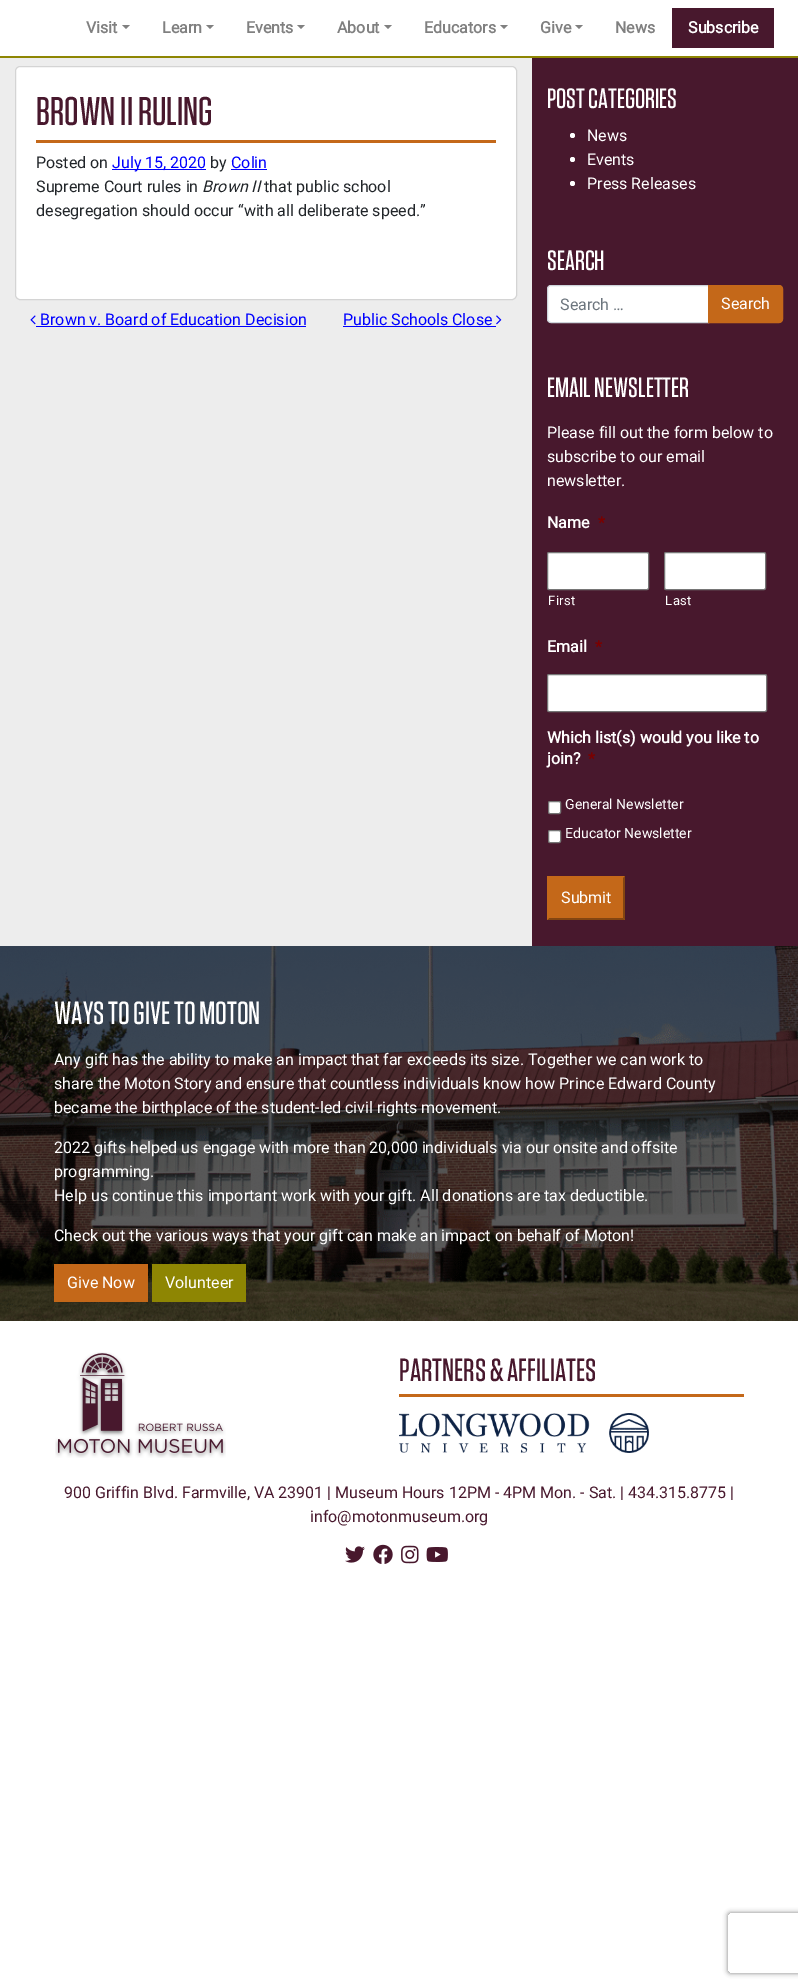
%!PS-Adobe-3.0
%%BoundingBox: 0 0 798 1987
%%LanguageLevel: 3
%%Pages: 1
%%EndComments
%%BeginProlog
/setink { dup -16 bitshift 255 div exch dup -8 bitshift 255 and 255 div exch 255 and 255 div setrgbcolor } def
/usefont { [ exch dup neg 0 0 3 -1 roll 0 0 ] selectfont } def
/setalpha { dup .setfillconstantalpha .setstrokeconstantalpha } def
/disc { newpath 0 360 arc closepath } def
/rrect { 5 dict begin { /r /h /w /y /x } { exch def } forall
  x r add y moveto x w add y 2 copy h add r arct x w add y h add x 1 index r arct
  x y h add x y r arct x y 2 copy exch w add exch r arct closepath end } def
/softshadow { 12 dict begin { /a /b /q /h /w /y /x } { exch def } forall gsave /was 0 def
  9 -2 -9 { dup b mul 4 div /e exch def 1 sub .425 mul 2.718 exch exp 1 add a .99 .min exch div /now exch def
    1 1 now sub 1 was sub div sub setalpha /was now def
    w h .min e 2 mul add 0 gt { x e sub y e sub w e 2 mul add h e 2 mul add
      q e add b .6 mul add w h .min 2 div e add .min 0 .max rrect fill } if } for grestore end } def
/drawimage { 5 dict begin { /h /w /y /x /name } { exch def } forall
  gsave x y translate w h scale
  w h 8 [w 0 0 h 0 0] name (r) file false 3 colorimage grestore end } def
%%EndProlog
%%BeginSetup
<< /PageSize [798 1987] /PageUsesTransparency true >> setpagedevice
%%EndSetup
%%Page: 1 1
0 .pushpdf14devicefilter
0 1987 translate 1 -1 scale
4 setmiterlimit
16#FFFFFF setink
0 0 798 1987 rectfill
16#8E8603 setink
0 56 798 2 rectfill
/Roboto-Bold 16 usefont
16#808080 setink
86 33 moveto (Visit) show
122 25 moveto 130 25 lineto 126 29 lineto closepath fill
162 33 moveto (Learn) show
206 25 moveto 214 25 lineto 210 29 lineto closepath fill
246 33 moveto (Events) show
297 25 moveto 305 25 lineto 301 29 lineto closepath fill
337 33 moveto (About) show
384 25 moveto 392 25 lineto 388 29 lineto closepath fill
424 33 moveto (Educators) show
500 25 moveto 508 25 lineto 504 29 lineto closepath fill
540 33 moveto (Give) show
575 25 moveto 583 25 lineto 579 29 lineto closepath fill
615 33 moveto (News) show
16#48182D setink
672 8 102 40 rectfill
16#FFFFFF setink
688 33 moveto (Subscribe) show
16#EDEDED setink
0 58 532 888 rectfill
16#FFFFFF setink
15.5 66.5 501 233 4.5 rrect gsave fill grestore
16#D4D4D4 setink
stroke
16#C46819 setink
36 140 460 3 rectfill
/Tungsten-Medium 40 usefont
16#48182D setink
36 125 moveto (BROWN II RULING) show
/Roboto-Regular 16 usefont
16#212529 setink
36 168 moveto (Posted on) show
16#0000FF setink
112 169 94 1 rectfill
112 168 moveto (July 15, 2020) show
16#212529 setink
210 168 moveto (by) show
16#0000FF setink
231 168 moveto (Colin) show
231 169 36 1 rectfill
16#212529 setink
36 192 moveto (Supreme Court rules in) show
/Roboto-Italic 16 usefont
202 192 moveto (Brown II) show
/Roboto-Regular 16 usefont
264 192 moveto (that public school) show
36 216 moveto (desegregation should occur “with all deliberate speed.”) show
(img1.raw) 30 315 6 10 drawimage
16#0000FF setink
40 325 moveto (Brown v. Board of Education Decision) show
36 326 270 1 rectfill
343 325 moveto (Public Schools Close) show
343 326 153 1 rectfill
(img2.raw) 496 315 6 10 drawimage
16#48182D setink
532 58 266 888 rectfill
/Tungsten-Medium 28 usefont
16#FFFFFF setink
547 108 moveto (POST CATEGORIES) show
572.5 135.5 2.5 disc fill
/Roboto-Regular 16 usefont
587 141 moveto (News) show
572.5 159.5 2.5 disc fill
587 165 moveto (Events) show
572.5 183.5 2.5 disc fill
587 189 moveto (Press Releases) show
/Tungsten-Medium 28 usefont
547 270 moveto (SEARCH) show
551 285.5 moveto 708.5 285.5 lineto 708.5 322.5 lineto 551 322.5 lineto 549 322.5 547.5 321 547.5 319 curveto 547.5 289 lineto 547.5 287 549 285.5 551 285.5 curveto closepath gsave fill grestore
16#CED4DA setink
stroke
/Roboto-Regular 16 usefont
16#6C757D setink
560 310 moveto (Search …) show
16#C46819 setink
708.5 285.5 moveto 779 285.5 lineto 781 285.5 782.5 287 782.5 289 curveto 782.5 319 lineto 782.5 321 781 322.5 779 322.5 curveto 708.5 322.5 lineto closepath gsave fill grestore
stroke
16#FFFFFF setink
721 309 moveto (Search) show
/Tungsten-Medium 28 usefont
547 397 moveto (EMAIL NEWSLETTER) show
/Roboto-Regular 16 usefont
[
    [(Please fill out the form below to) 547 438]
    [(subscribe to our email) 547 462]
    [(newsletter.) 547 486]
] { aload pop moveto show } forall
/Roboto-Bold 16 usefont
547 528 moveto (Name) show
16#790000 setink
598 528 moveto (*) show
16#FFFFFF setink
547.5 552.5 101 37 1.5 rrect gsave fill grestore
16#767676 setink
stroke
/Roboto-Regular 13 usefont
16#FFFFFF setink
548 605 moveto 0.5 0 (First) ashow
664.5 552.5 101 37 1.5 rrect gsave fill grestore
16#767676 setink
stroke
16#FFFFFF setink
665 605 moveto 0.5 0 (Last) ashow
/Roboto-Bold 16 usefont
547 652 moveto (Email) show
16#790000 setink
595 652 moveto (*) show
16#FFFFFF setink
547.5 674.5 219 37 1.5 rrect gsave fill grestore
16#767676 setink
stroke
16#FFFFFF setink
547 743 moveto (Which list\(s\) would you like to) show
547 764 moveto (join?) show
16#790000 setink
588 764 moveto (*) show
16#FFFFFF setink
548.5 801.5 12 12 1.5 rrect gsave fill grestore
16#767676 setink
stroke
/Roboto-Regular 14 usefont
16#FFFFFF setink
565 809 moveto (General Newsletter) show
548.5 830.5 12 12 1.5 rrect gsave fill grestore
16#767676 setink
stroke
16#FFFFFF setink
565 838 moveto (Educator Newsletter) show
16#C46819 setink
547 876 78 44 rectfill
16#834511 setink
625 876 moveto 625 920 lineto 623 918 lineto 623 878 lineto closepath fill
625 920 moveto 547 920 lineto 549 918 lineto 623 918 lineto closepath fill
16#C46819 setink
547 920 moveto 547 876 lineto 549 878 lineto 549 918 lineto closepath fill
/Roboto-Regular 16 usefont
16#FFFFFF setink
561 903 moveto (Submit) show
(img3.raw) 0 946 798 375 drawimage
/Tungsten-Medium 32 usefont
54 1024 moveto (WAYS TO GIVE TO MOTON) show
/Roboto-Regular 16 usefont
[
    [(Any gift has the ability to make an impact that far exceeds its size. Together we can work to) 54 1065]
    [(share the Moton Story and ensure that countless individuals know how Prince Edward County) 54 1089]
    [(became the birthplace of the student-led civil rights movement.) 54 1113]
    [(2022 gifts helped us engage with more than 20,000 individuals via our onsite and offsite) 54 1153]
    [(programming.) 54 1177]
    [(Help us continue this important work with your gift. All donations are tax deductible.) 54 1201]
    [(Check out the various ways that your gift can make an impact on behalf of Moton!) 54 1241]
] { aload pop moveto show } forall
16#C46819 setink
54 1264 94 38 rectfill
16#FFFFFF setink
67 1288 moveto (Give Now) show
16#8E8603 setink
152 1264 94 38 rectfill
16#FFFFFF setink
165 1288 moveto (Volunteer) show
(img4.raw) 55 1352 171 106 drawimage
16#C46819 setink
399 1394 345 3 rectfill
/Tungsten-Medium 32 usefont
16#48182D setink
399 1381 moveto (PARTNERS & AFFILIATES) show
(img5.raw) 399 1413 250 40 drawimage
/Roboto-Regular 16 usefont
64 1498 moveto (900 Griffin Blvd. Farmville, VA 23901 | Museum Hours 12PM - 4PM Mon. - Sat. | 434.315.8775 |) show
310 1522 moveto (info@motonmuseum.org) show
(img6.raw) 345 1546 20 17 drawimage
(img7.raw) 373 1544 20 20 drawimage
(img8.raw) 401 1545 18 19 drawimage
(img9.raw) 426 1547 22 15 drawimage
gsave
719 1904 moveto 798 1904 lineto 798 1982 lineto 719 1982 lineto closepath 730 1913 moveto 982 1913 lineto 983 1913 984 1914 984 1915 curveto 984 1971 lineto 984 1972 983 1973 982 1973 curveto 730 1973 lineto 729 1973 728 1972 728 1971 curveto 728 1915 lineto 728 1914 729 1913 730 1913 curveto closepath eoclip newpath
16#808080 setink
728 1913 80 60 2 2.5 1 softshadow
grestore
.poppdf14devicefilter showpage
%%EOF
